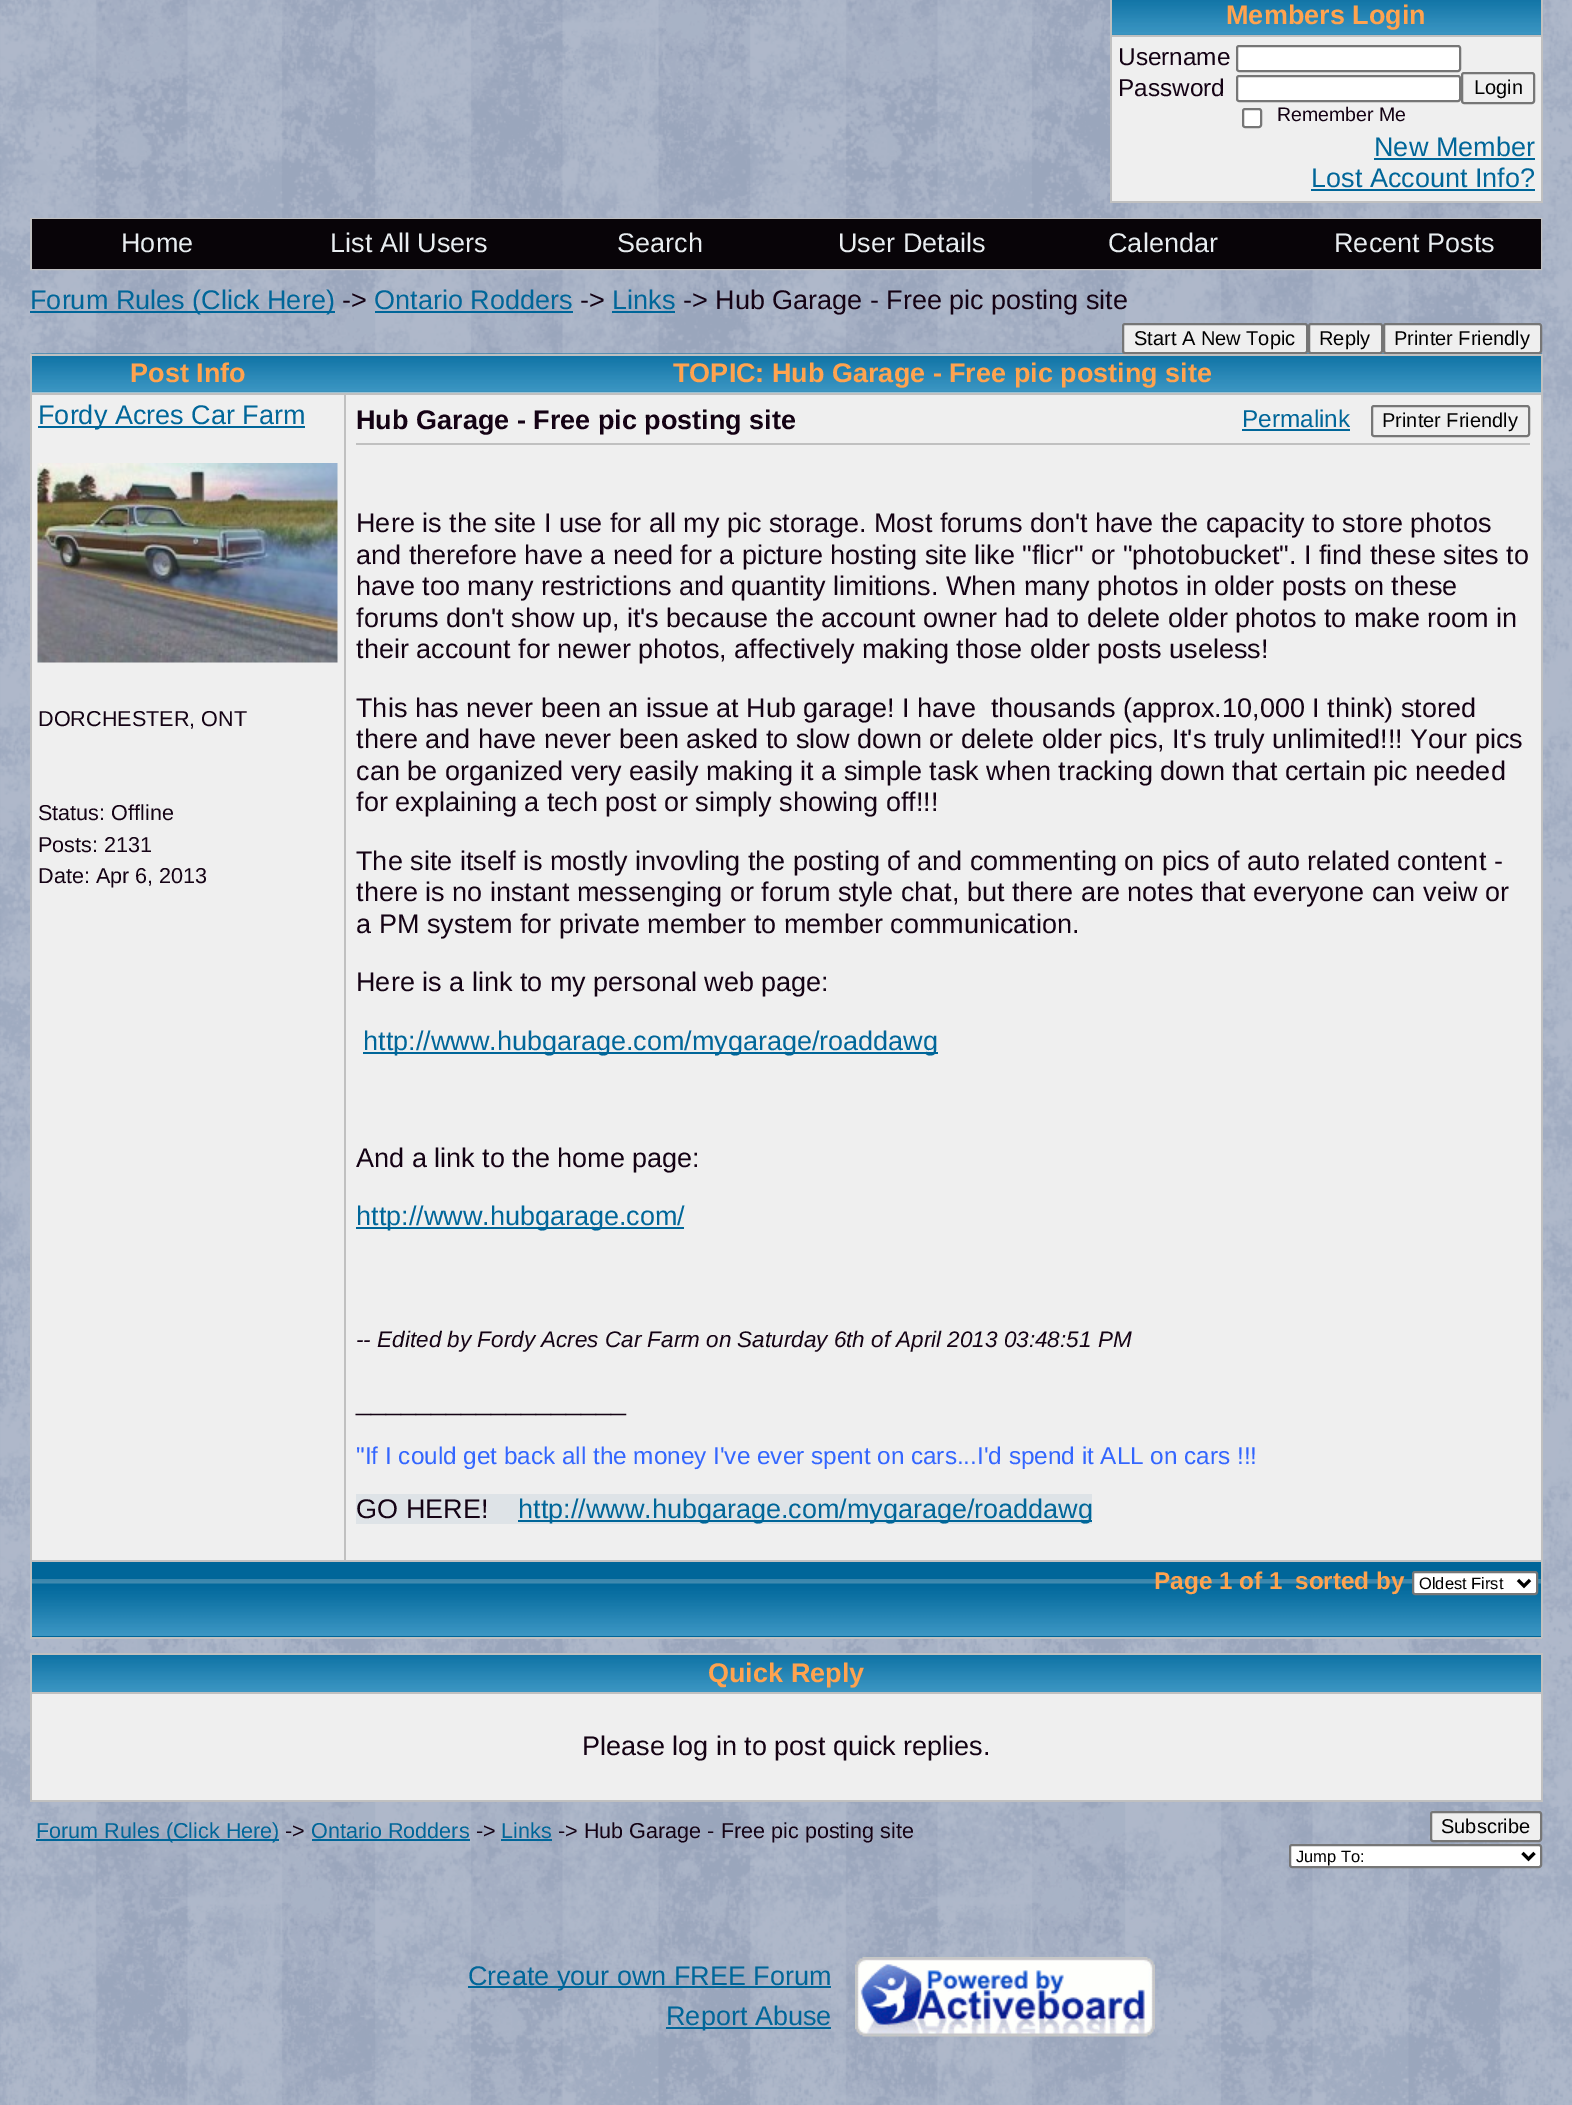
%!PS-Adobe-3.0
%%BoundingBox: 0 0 1572 2105
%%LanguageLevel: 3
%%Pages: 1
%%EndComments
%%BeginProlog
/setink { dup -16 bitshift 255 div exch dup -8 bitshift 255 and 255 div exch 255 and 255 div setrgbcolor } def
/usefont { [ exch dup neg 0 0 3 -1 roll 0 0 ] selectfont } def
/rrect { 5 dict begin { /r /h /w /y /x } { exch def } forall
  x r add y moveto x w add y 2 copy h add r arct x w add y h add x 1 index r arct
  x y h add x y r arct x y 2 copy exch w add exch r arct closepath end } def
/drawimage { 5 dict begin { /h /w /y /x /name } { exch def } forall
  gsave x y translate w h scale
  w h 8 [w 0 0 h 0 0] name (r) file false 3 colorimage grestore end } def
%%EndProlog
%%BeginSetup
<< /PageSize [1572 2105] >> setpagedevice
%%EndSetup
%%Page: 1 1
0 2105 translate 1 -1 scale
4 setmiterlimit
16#FFFFFF setink
0 0 1572 2105 rectfill
(img1.raw) 0 0 1572 2105 drawimage
[
    [1541 0 2 203 16#C0C0C0]
    [1110 201 432 2 16#C0C0C0]
    [1110 0 2 203 16#C0C0C0]
] { aload pop setink rectfill } forall
(img2.raw) 1112 0 429 35 drawimage
1110 35 432 2 rectfill
/LiberationSans-Bold 27 usefont
16#FFA34F setink
1226 24 moveto (Members Login) show
16#EFEFEF setink
1112 37 429 164 rectfill
/LiberationSans-Regular 24.3 usefont
16#140214 setink
1118 65 moveto (Username) show
16#FFFFFF setink
1237 46 223 25 2 rrect gsave fill grestore
16#767676 setink
2 setlinewidth
stroke
16#140214 setink
1118 96 moveto (Password) show
16#FFFFFF setink
1237 76 223 25 2 rrect gsave fill grestore
16#767676 setink
stroke
1462 73 72 30 2 rrect stroke
/LiberationSans-Regular 20 usefont
16#000000 setink
1474 94 moveto (Login) show
16#FFFFFF setink
1243 109 18 18 2 rrect gsave fill grestore
16#767676 setink
stroke
/LiberationSans-Regular 19.5 usefont
16#140214 setink
1277 121 moveto (Remember Me) show
/LiberationSans-Regular 27 usefont
16#006699 setink
1374 156 moveto (New Member) show
1374 158 161 2 rectfill
1311 187 moveto (Lost Account Info?) show
1311 189 224 2 rectfill
16#C0C0C0 setink
31 219 1510 50 rectstroke
16#080408 setink
32 219 1509 50 rectfill
16#E8EDF0 setink
[
    [(Home) 121 252]
    [(List All Users) 330 252]
    [(Search) 617 252]
    [(User Details) 838 252]
    [(Calendar) 1108 252]
    [(Recent Posts) 1334 252]
] { aload pop moveto show } forall
16#006699 setink
30 311 305 2 rectfill
30 309 moveto (Forum Rules \(Click Here\)) show
16#140214 setink
342 309 moveto (->) show
16#006699 setink
374 309 moveto (Ontario Rodders) show
375 311 198 2 rectfill
16#140214 setink
580 309 moveto (->) show
16#006699 setink
612 309 moveto (Links) show
612 311 63 2 rectfill
16#140214 setink
683 309 moveto (-> Hub Garage - Free pic posting site) show
16#FFFFFF setink
32 392 1509 1 rectfill
(img4.raw) 345 353 1197 40 drawimage
16#EFEFEF setink
1123 324 184 29 2 rrect gsave fill grestore
16#767676 setink
stroke
/LiberationSans-Regular 20 usefont
16#000000 setink
1134 345 moveto (Start A New Topic) show
16#EFEFEF setink
1309 324 73 29 2 rrect gsave fill grestore
16#767676 setink
stroke
16#000000 setink
1319 345 moveto (Reply) show
16#EFEFEF setink
1384 324 157 29 2 rrect gsave fill grestore
16#767676 setink
stroke
16#000000 setink
1394 345 moveto (Printer Friendly) show
(img3.raw) 31 353 314 40 drawimage
[
    [30 354 1512 2 16#C0C0C0]
    [1541 354 2 1284 16#C0C0C0]
    [30 1637 1512 2 16#C0C0C0]
    [30 354 2 1284 16#C0C0C0]
] { aload pop setink rectfill } forall
/LiberationSans-Bold 27 usefont
16#FFA34F setink
130 382 moveto (Post Info) show
673 382 moveto (TOPIC: Hub Garage - Free pic posting site) show
[
    [32 395 312 1165 16#EFEFEF]
    [344 393 1198 2 16#C0C0C0]
    [30 1560 1512 2 16#C0C0C0]
    [344 393 2 1169 16#C0C0C0]
    [30 393 315 2 16#C0C0C0]
    [38 426 267 2 16#006699]
] { aload pop setink rectfill } forall
/LiberationSans-Regular 27 usefont
38 424 moveto (Fordy Acres Car Farm) show
(img5.raw) 37 463 301 200 drawimage
/LiberationSans-Regular 21.6 usefont
16#140214 setink
[
    [(DORCHESTER, ONT) 38 726]
    [(Status: Offline) 38 820]
    [(Posts: 2131) 38 852]
    [(Date: Apr 6, 2013) 38 883]
] { aload pop moveto show } forall
16#EFEFEF setink
346 395 1195 1165 rectfill
/LiberationSans-Bold 27 usefont
16#140214 setink
356 429 moveto (Hub Garage - Free pic posting site) show
/LiberationSans-Regular 24.3 usefont
16#006699 setink
1242 427 moveto (Permalink) show
1242 429 108 2 rectfill
16#767676 setink
1372 406 157 30 2 rrect stroke
/LiberationSans-Regular 20 usefont
16#000000 setink
1382 427 moveto (Printer Friendly) show
16#C0C0C0 setink
356 443 1174 2 rectfill
/LiberationSans-Regular 27 usefont
16#140214 setink
[
    [(Here is the site I use for all my pic storage. Most forums don't have the capacity to store photos) 356 532]
    [(and therefore have a need for a picture hosting site like "flicr" or "photobucket". I find these sites to) 356 564]
    [(have too many restrictions and quantity limitions. When many photos in older posts on these) 356 595]
    [(forums don't show up, it's because the account owner had to delete older photos to make room in) 356 627]
    [(their account for newer photos, affectively making those older posts useless!) 356 658]
    [(This has never been an issue at Hub garage! I have  thousands \(approx.10,000 I think\) stored) 356 717]
    [(there and have never been asked to slow down or delete older pics, It's truly unlimited!!! Your pics) 356 748]
    [(can be organized very easily making it a simple task when tracking down that certain pic needed) 356 780]
    [(for explaining a tech post or simply showing off!!!) 356 811]
    [(The site itself is mostly invovling the posting of and commenting on pics of auto related content -) 356 870]
    [(there is no instant messenging or forum style chat, but there are notes that everyone can veiw or) 356 901]
    [(a PM system for private member to member communication.) 356 933]
    [(Here is a link to my personal web page:) 356 991]
] { aload pop moveto show } forall
16#006699 setink
363 1052 575 2 rectfill
363 1050 moveto (http://www.hubgarage.com/mygarage/roaddawg) show
16#140214 setink
356 1167 moveto (And a link to the home page:) show
16#006699 setink
356 1227 328 2 rectfill
356 1225 moveto (http://www.hubgarage.com/) show
/LiberationSans-Italic 22.5 usefont
16#140214 setink
356 1347 moveto (-- Edited by Fordy Acres Car Farm on Saturday 6th of April 2013 03:48:51 PM) show
/LiberationSans-Regular 27 usefont
356 1410 moveto (__________________) show
/LiberationSans-Regular 24.3 usefont
16#3366FF setink
356 1464 moveto ("If I could get back all the money I've ever spent on cars...I'd spend it ALL on cars !!!) show
16#DEE3E7 setink
356 1494 736 30 rectfill
/LiberationSans-Regular 27 usefont
16#140214 setink
356 1518 moveto (GO HERE!) show
16#006699 setink
518 1520 574 2 rectfill
518 1518 moveto (http://www.hubgarage.com/mygarage/roaddawg) show
32 1562 1509 75 rectfill
(img6.raw) 32 1579 1509 57 drawimage
/LiberationSans-Bold 24.3 usefont
16#FFA34F setink
1154 1589 moveto (Page 1 of 1) show
1295 1589 moveto (sorted by) show
16#FFFFFF setink
1413 1572 124 22 2 rrect gsave fill grestore
16#767676 setink
stroke
16#000000 setink
3 setlinewidth
1518 1580 moveto 1524 1586 lineto 1530 1580 lineto stroke
/LiberationSans-Regular 16.5 usefont
1419 1589 moveto (Oldest First) show
[
    [30 1653 1512 2 16#C0C0C0]
    [1541 1653 2 149 16#C0C0C0]
    [30 1800 1512 2 16#C0C0C0]
    [30 1653 2 149 16#C0C0C0]
] { aload pop setink rectfill } forall
(img7.raw) 32 1655 1509 37 drawimage
30 1692 1512 2 rectfill
/LiberationSans-Bold 27 usefont
16#FFA34F setink
708 1682 moveto (Quick Reply) show
16#EFEFEF setink
32 1694 1509 106 rectfill
/LiberationSans-Regular 27 usefont
16#140214 setink
582 1755 moveto (Please log in to post quick replies.) show
16#006699 setink
36 1839 243 2 rectfill
/LiberationSans-Regular 21.6 usefont
36 1838 moveto (Forum Rules \(Click Here\)) show
16#140214 setink
285 1838 moveto (->) show
16#006699 setink
311 1838 moveto (Ontario Rodders) show
312 1839 158 2 rectfill
16#140214 setink
476 1838 moveto (->) show
16#006699 setink
501 1838 moveto (Links) show
501 1839 51 2 rectfill
16#140214 setink
558 1838 moveto (-> Hub Garage - Free pic posting site) show
16#EFEFEF setink
1431 1812 110 29 2 rrect gsave fill grestore
16#767676 setink
2 setlinewidth
stroke
/LiberationSans-Regular 20 usefont
16#000000 setink
1441 1833 moveto (Subscribe) show
16#FFFFFF setink
1290 1845 251 22 2 rrect gsave fill grestore
16#767676 setink
stroke
16#000000 setink
3 setlinewidth
1522.5 1853 moveto 1528.5 1859 lineto 1534.5 1853 lineto stroke
/LiberationSans-Regular 16.5 usefont
1296 1862 moveto (Jump To:) show
16#006699 setink
468 1986 363 2 rectfill
/LiberationSans-Regular 27 usefont
468 1985 moveto (Create your own FREE Forum) show
666 2027 165 2 rectfill
666 2025 moveto (Report Abuse) show
(img8.raw) 855 1957 300 80 drawimage
showpage
%%EOF
